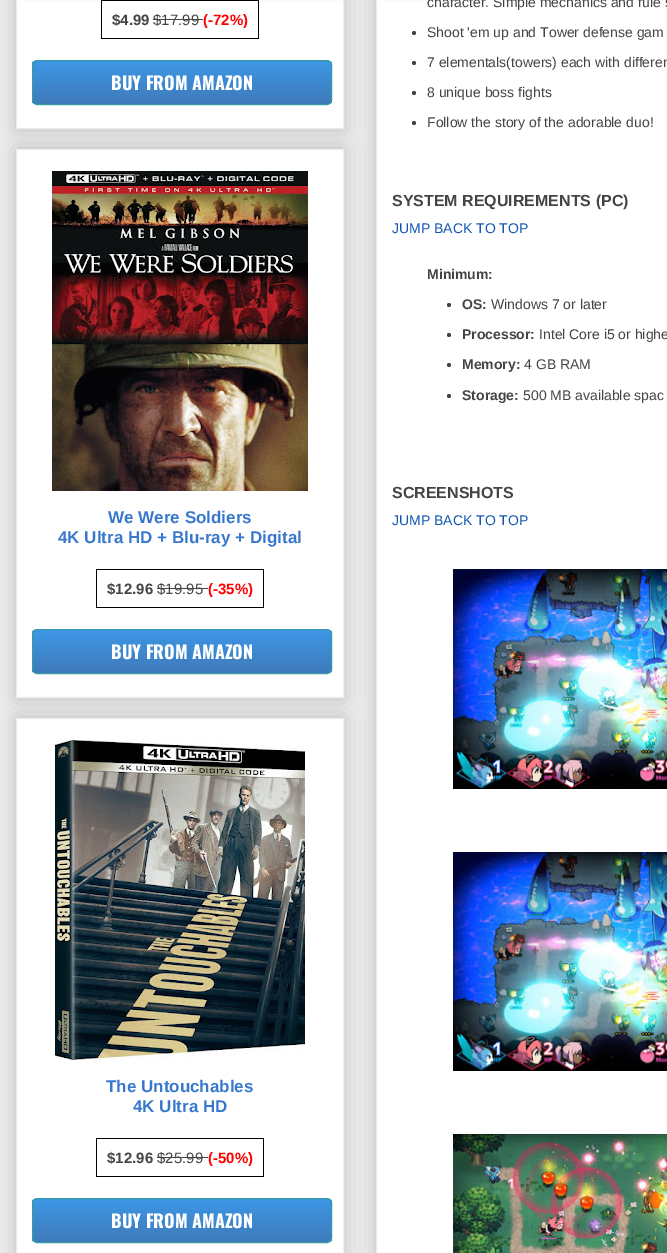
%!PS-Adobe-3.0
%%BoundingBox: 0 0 667 1253
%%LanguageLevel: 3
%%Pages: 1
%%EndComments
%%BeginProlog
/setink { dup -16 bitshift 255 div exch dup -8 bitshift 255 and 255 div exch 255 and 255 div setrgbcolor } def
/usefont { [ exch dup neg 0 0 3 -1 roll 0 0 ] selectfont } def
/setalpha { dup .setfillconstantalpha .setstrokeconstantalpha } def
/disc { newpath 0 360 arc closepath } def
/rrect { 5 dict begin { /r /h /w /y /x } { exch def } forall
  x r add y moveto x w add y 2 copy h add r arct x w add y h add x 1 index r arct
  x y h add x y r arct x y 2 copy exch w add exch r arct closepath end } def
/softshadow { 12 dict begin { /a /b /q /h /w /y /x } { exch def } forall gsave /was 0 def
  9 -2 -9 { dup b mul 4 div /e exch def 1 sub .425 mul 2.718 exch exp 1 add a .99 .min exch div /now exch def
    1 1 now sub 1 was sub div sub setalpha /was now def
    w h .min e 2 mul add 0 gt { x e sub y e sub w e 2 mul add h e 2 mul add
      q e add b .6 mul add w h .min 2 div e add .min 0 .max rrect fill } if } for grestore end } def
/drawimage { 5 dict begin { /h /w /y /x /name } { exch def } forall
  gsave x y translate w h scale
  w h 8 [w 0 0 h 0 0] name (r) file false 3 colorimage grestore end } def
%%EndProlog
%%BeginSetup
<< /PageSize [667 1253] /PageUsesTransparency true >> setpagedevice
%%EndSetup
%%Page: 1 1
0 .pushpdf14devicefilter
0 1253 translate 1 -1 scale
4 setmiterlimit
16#EEEEEE setink
0 0 667 1253 rectfill
16#000000 setink
16 -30 328 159 0 10 0.2 softshadow
16#FFFFFF setink
16.5 -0.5 moveto 343.5 -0.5 lineto 343.5 128.5 lineto 16.5 128.5 lineto closepath gsave fill grestore
16#EEEEEE setink
stroke
/LiberationSans-Bold 15 usefont
16#444444 setink
112 25 moveto ($4.99) show
[
    [101 0 158 1 16#000000]
    [101 38 102 1 16#000000]
    [101 0 1 39 16#000000]
] { aload pop setink rectfill } forall
/LiberationSans-Regular 15 usefont
16#444444 setink
153 25 moveto ($17.99) show
153 19 50 1 rectfill
/LiberationSans-Bold 15 usefont
16#FF0000 setink
203 25 moveto (\(-72%\)) show
16#000000 setink
258 0 1 39 rectfill
203 38 56 1 rectfill
gsave
32 60 300 45 5 rrect clip newpath
gsave 32 61 moveto 332 61 lineto 332 104 lineto 32 104 lineto closepath clip newpath
<< /ShadingType 2 /ColorSpace /DeviceRGB /Coords [182 61 182 104] /Extend [true true] /Function << /FunctionType 2 /Domain [0 1] /C0 [0.239 0.592 0.902] /C1 [0.247 0.478 0.729] /N 1 >> >> shfill grestore
grestore
16#379AA4 setink
32.5 60.5 299 44 4.5 rrect stroke
/Oswald-Bold 18 usefont
16#FFFFFF setink
111 90 moveto (BUY FROM AMAZON) show
16#000000 setink
16 149 328 549 0 10 0.2 softshadow
16#FFFFFF setink
16.5 149.5 moveto 343.5 149.5 lineto 343.5 697.5 lineto 16.5 697.5 lineto closepath gsave fill grestore
16#EEEEEE setink
stroke
(img1.raw) 52 171 256 320 drawimage
/LiberationSans-Bold 17 usefont
16#3778CD setink
108 523 moveto (We Were Soldiers) show
58 543 moveto (4K Ultra HD + Blu-ray + Digital) show
/LiberationSans-Bold 15 usefont
16#444444 setink
107 594 moveto ($12.96) show
[
    [96 569 168 1 16#000000]
    [96 607 112 1 16#000000]
    [96 569 1 39 16#000000]
] { aload pop setink rectfill } forall
/LiberationSans-Regular 15 usefont
16#444444 setink
157 594 moveto ($19.95) show
157 588 51 1 rectfill
/LiberationSans-Bold 15 usefont
16#FF0000 setink
208 594 moveto (\(-35%\)) show
16#000000 setink
263 569 1 39 rectfill
208 607 56 1 rectfill
gsave
32 629 300 45 5 rrect clip newpath
gsave 32 630 moveto 332 630 lineto 332 673 lineto 32 673 lineto closepath clip newpath
<< /ShadingType 2 /ColorSpace /DeviceRGB /Coords [182 630 182 673] /Extend [true true] /Function << /FunctionType 2 /Domain [0 1] /C0 [0.239 0.592 0.902] /C1 [0.247 0.478 0.729] /N 1 >> >> shfill grestore
grestore
16#379AA4 setink
32.5 629.5 299 44 4.5 rrect stroke
/Oswald-Bold 18 usefont
16#FFFFFF setink
111 659 moveto (BUY FROM AMAZON) show
16#000000 setink
16 718 328 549 0 10 0.2 softshadow
16#FFFFFF setink
16.5 718.5 moveto 343.5 718.5 lineto 343.5 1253.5 lineto 16.5 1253.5 lineto closepath gsave fill grestore
16#EEEEEE setink
stroke
(img2.raw) 55 740 250 320 drawimage
/LiberationSans-Bold 17 usefont
16#3778CD setink
106 1092 moveto (The Untouchables) show
133 1112 moveto (4K Ultra HD) show
/LiberationSans-Bold 15 usefont
16#444444 setink
107 1163 moveto ($12.96) show
[
    [96 1138 168 1 16#000000]
    [96 1176 112 1 16#000000]
    [96 1138 1 39 16#000000]
] { aload pop setink rectfill } forall
/LiberationSans-Regular 15 usefont
16#444444 setink
157 1163 moveto ($25.99) show
157 1157 51 1 rectfill
/LiberationSans-Bold 15 usefont
16#FF0000 setink
208 1163 moveto (\(-50%\)) show
16#000000 setink
263 1138 1 39 rectfill
208 1176 56 1 rectfill
gsave
32 1198 300 45 5 rrect clip newpath
gsave 32 1199 moveto 332 1199 lineto 332 1242 lineto 32 1242 lineto closepath clip newpath
<< /ShadingType 2 /ColorSpace /DeviceRGB /Coords [182 1199 182 1242] /Extend [true true] /Function << /FunctionType 2 /Domain [0 1] /C0 [0.239 0.592 0.902] /C1 [0.247 0.478 0.729] /N 1 >> >> shfill grestore
grestore
16#379AA4 setink
32.5 1198.5 299 44 4.5 rrect stroke
/Oswald-Bold 18 usefont
16#FFFFFF setink
111 1228 moveto (BUY FROM AMAZON) show
16#000000 setink
376 -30 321 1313 0 10 0.2 softshadow
16#FFFFFF setink
376.5 -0.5 moveto 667.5 -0.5 lineto 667.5 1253.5 lineto 376.5 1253.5 lineto closepath gsave fill grestore
16#EEEEEE setink
stroke
/LiberationSans-Regular 14 usefont
16#444444 setink
427 7 moveto (character. Simple mechanics and rule s) show
414 33 2 disc fill
427 37 moveto (Shoot 'em up and Tower defense gam) show
414 63 2 disc fill
427 67 moveto (7 elementals\(towers\) each with differen) show
414 93 2 disc fill
427 97 moveto (8 unique boss fights) show
414 123 2 disc fill
427 127 moveto (Follow the story of the adorable duo!) show
/LiberationSans-Bold 16 usefont
392 206 moveto (SYSTEM REQUIREMENTS \(PC\)) show
/LiberationSans-Regular 14 usefont
16#1156B2 setink
392 233 moveto (JUMP BACK TO TOP) show
/LiberationSans-Bold 14 usefont
16#444444 setink
427 279 moveto (Minimum:) show
449 305 2 disc fill
462 309 moveto (OS:) show
/LiberationSans-Regular 14 usefont
491 309 moveto (Windows 7 or later) show
449 335 2 disc fill
/LiberationSans-Bold 14 usefont
462 339 moveto (Processor:) show
/LiberationSans-Regular 14 usefont
539 339 moveto (Intel Core i5 or highe) show
449 365 2 disc fill
/LiberationSans-Bold 14 usefont
462 369 moveto (Memory:) show
/LiberationSans-Regular 14 usefont
524 369 moveto (4 GB RAM) show
449 396 2 disc fill
/LiberationSans-Bold 14 usefont
462 400 moveto (Storage:) show
/LiberationSans-Regular 14 usefont
523 400 moveto (500 MB available spac) show
/LiberationSans-Bold 16 usefont
392 498 moveto (SCREENSHOTS) show
/LiberationSans-Regular 14 usefont
16#1156B2 setink
392 525 moveto (JUMP BACK TO TOP) show
(img3.raw) 453 569 214 220 drawimage
(img4.raw) 453 852 214 219 drawimage
(img5.raw) 453 1134 214 119 drawimage
.poppdf14devicefilter showpage
%%EOF
